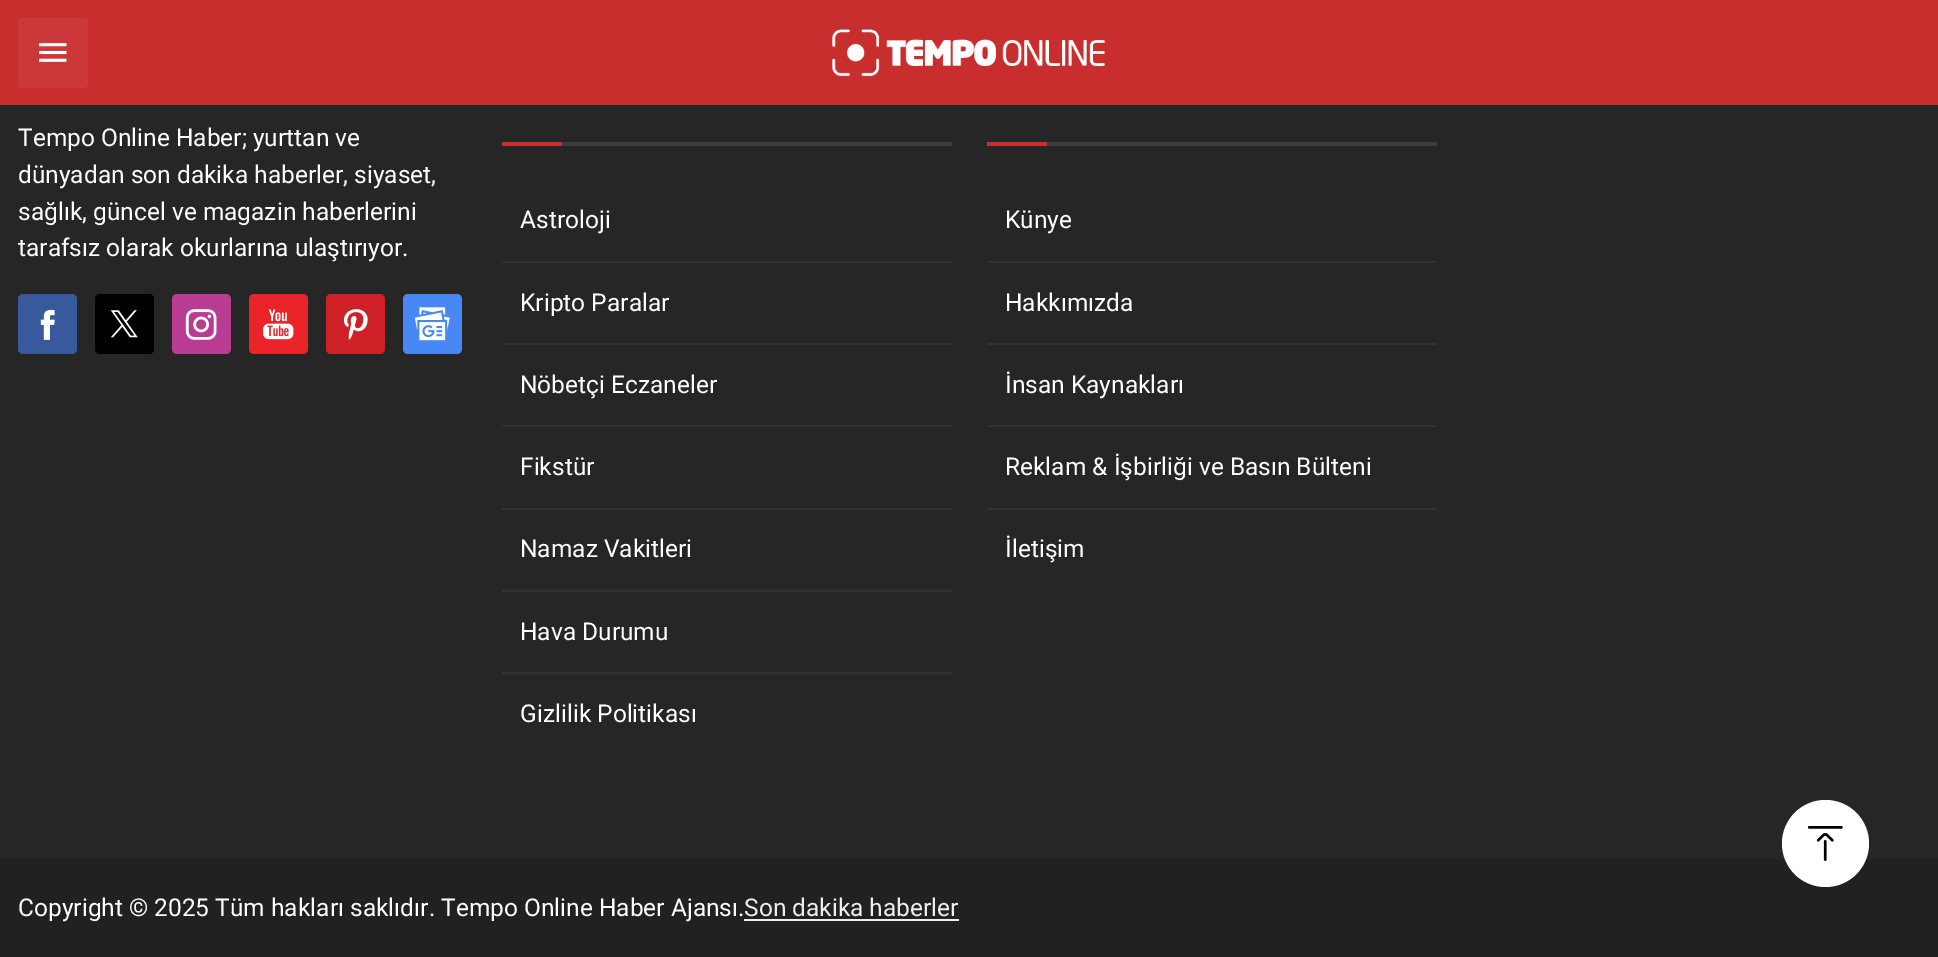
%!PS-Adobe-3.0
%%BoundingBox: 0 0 1938 957
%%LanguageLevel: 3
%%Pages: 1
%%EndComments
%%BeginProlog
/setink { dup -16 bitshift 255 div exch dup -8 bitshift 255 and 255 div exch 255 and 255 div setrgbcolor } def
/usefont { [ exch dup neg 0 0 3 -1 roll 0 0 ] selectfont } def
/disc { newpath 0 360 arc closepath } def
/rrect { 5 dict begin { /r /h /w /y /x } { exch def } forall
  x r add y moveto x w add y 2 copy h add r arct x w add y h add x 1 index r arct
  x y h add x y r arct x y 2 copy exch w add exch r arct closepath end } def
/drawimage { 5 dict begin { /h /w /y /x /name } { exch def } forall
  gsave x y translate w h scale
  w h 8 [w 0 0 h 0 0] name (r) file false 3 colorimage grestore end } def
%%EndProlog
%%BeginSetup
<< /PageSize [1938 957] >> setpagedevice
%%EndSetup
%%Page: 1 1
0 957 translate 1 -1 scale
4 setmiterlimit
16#262626 setink
0 0 1938 957 rectfill
16#C92E2F setink
0 0 1938 105 rectfill
16#CC3839 setink
18 18 70 70 5 rrect fill
(img1.raw) 39 43 28 19 drawimage
(img2.raw) 832 29 273 48 drawimage
/Roboto-Regular 24.5 usefont
16#FFFFFF setink
[
    [(Tempo Online Haber; yurttan ve) 18 146]
    [(dünyadan son dakika haberler, siyaset,) 18 183]
    [(sağlık, güncel ve magazin haberlerini) 18 220]
    [(tarafsız olarak okurlarına ulaştırıyor.) 18 256]
] { aload pop moveto show } forall
16#38599B setink
18 294 59 60 5 rrect fill
(img3.raw) 40 310 15 30 drawimage
16#000000 setink
95 294 59 60 5 rrect fill
(img4.raw) 110 310 28 28 drawimage
16#B83C92 setink
172 294 59 60 5 rrect fill
(img5.raw) 185 309 32 31 drawimage
16#EB2429 setink
249 294 59 60 5 rrect fill
(img6.raw) 263 309 31 31 drawimage
16#CD2127 setink
326 294 59 60 5 rrect fill
(img7.raw) 343 309 25 31 drawimage
16#4788F4 setink
403 294 59 60 5 rrect fill
(img8.raw) 415 307 35 34 drawimage
16#3C3C3C setink
562 142 390 4 rectfill
16#C92E2F setink
502 142 60 4 rectfill
16#FFFFFF setink
520 228 moveto (Astroloji) show
16#313131 setink
502 261 450 2 rectfill
16#FFFFFF setink
520 311 moveto (Kripto Paralar) show
16#313131 setink
502 343 450 2 rectfill
16#FFFFFF setink
520 393 moveto (Nöbetçi Eczaneler) show
16#313131 setink
502 425 450 2 rectfill
16#FFFFFF setink
520 475 moveto (Fikstür) show
16#313131 setink
502 508 450 2 rectfill
16#FFFFFF setink
520 557 moveto (Namaz Vakitleri) show
16#313131 setink
502 590 450 2 rectfill
16#FFFFFF setink
520 640 moveto (Hava Durumu) show
16#313131 setink
502 672 450 2 rectfill
16#FFFFFF setink
520 722 moveto (Gizlilik Politikası) show
16#3C3C3C setink
1047 142 390 4 rectfill
16#C92E2F setink
987 142 60 4 rectfill
16#FFFFFF setink
1005 228 moveto (Künye) show
16#313131 setink
987 261 450 2 rectfill
16#FFFFFF setink
1005 311 moveto (Hakkımızda) show
16#313131 setink
987 343 450 2 rectfill
16#FFFFFF setink
1005 393 moveto (İnsan Kaynakları) show
16#313131 setink
987 425 450 2 rectfill
16#FFFFFF setink
1005 475 moveto (Reklam & İşbirliği ve Basın Bülteni) show
16#313131 setink
987 508 450 2 rectfill
16#FFFFFF setink
1005 557 moveto (İletişim) show
16#212121 setink
0 859 1938 98 rectfill
16#FFFFFF setink
18 916 moveto (Copyright © 2025 Tüm hakları saklıdır. Tempo Online Haber Ajansı.) show
16#EEEEEE setink
744 916 moveto (Son dakika haberler) show
744 919 215 2 rectfill
16#FFFFFF setink
1825.5 843.5 43.5 disc fill
(img9.raw) 1808 826 35 35 drawimage
showpage
%%EOF
